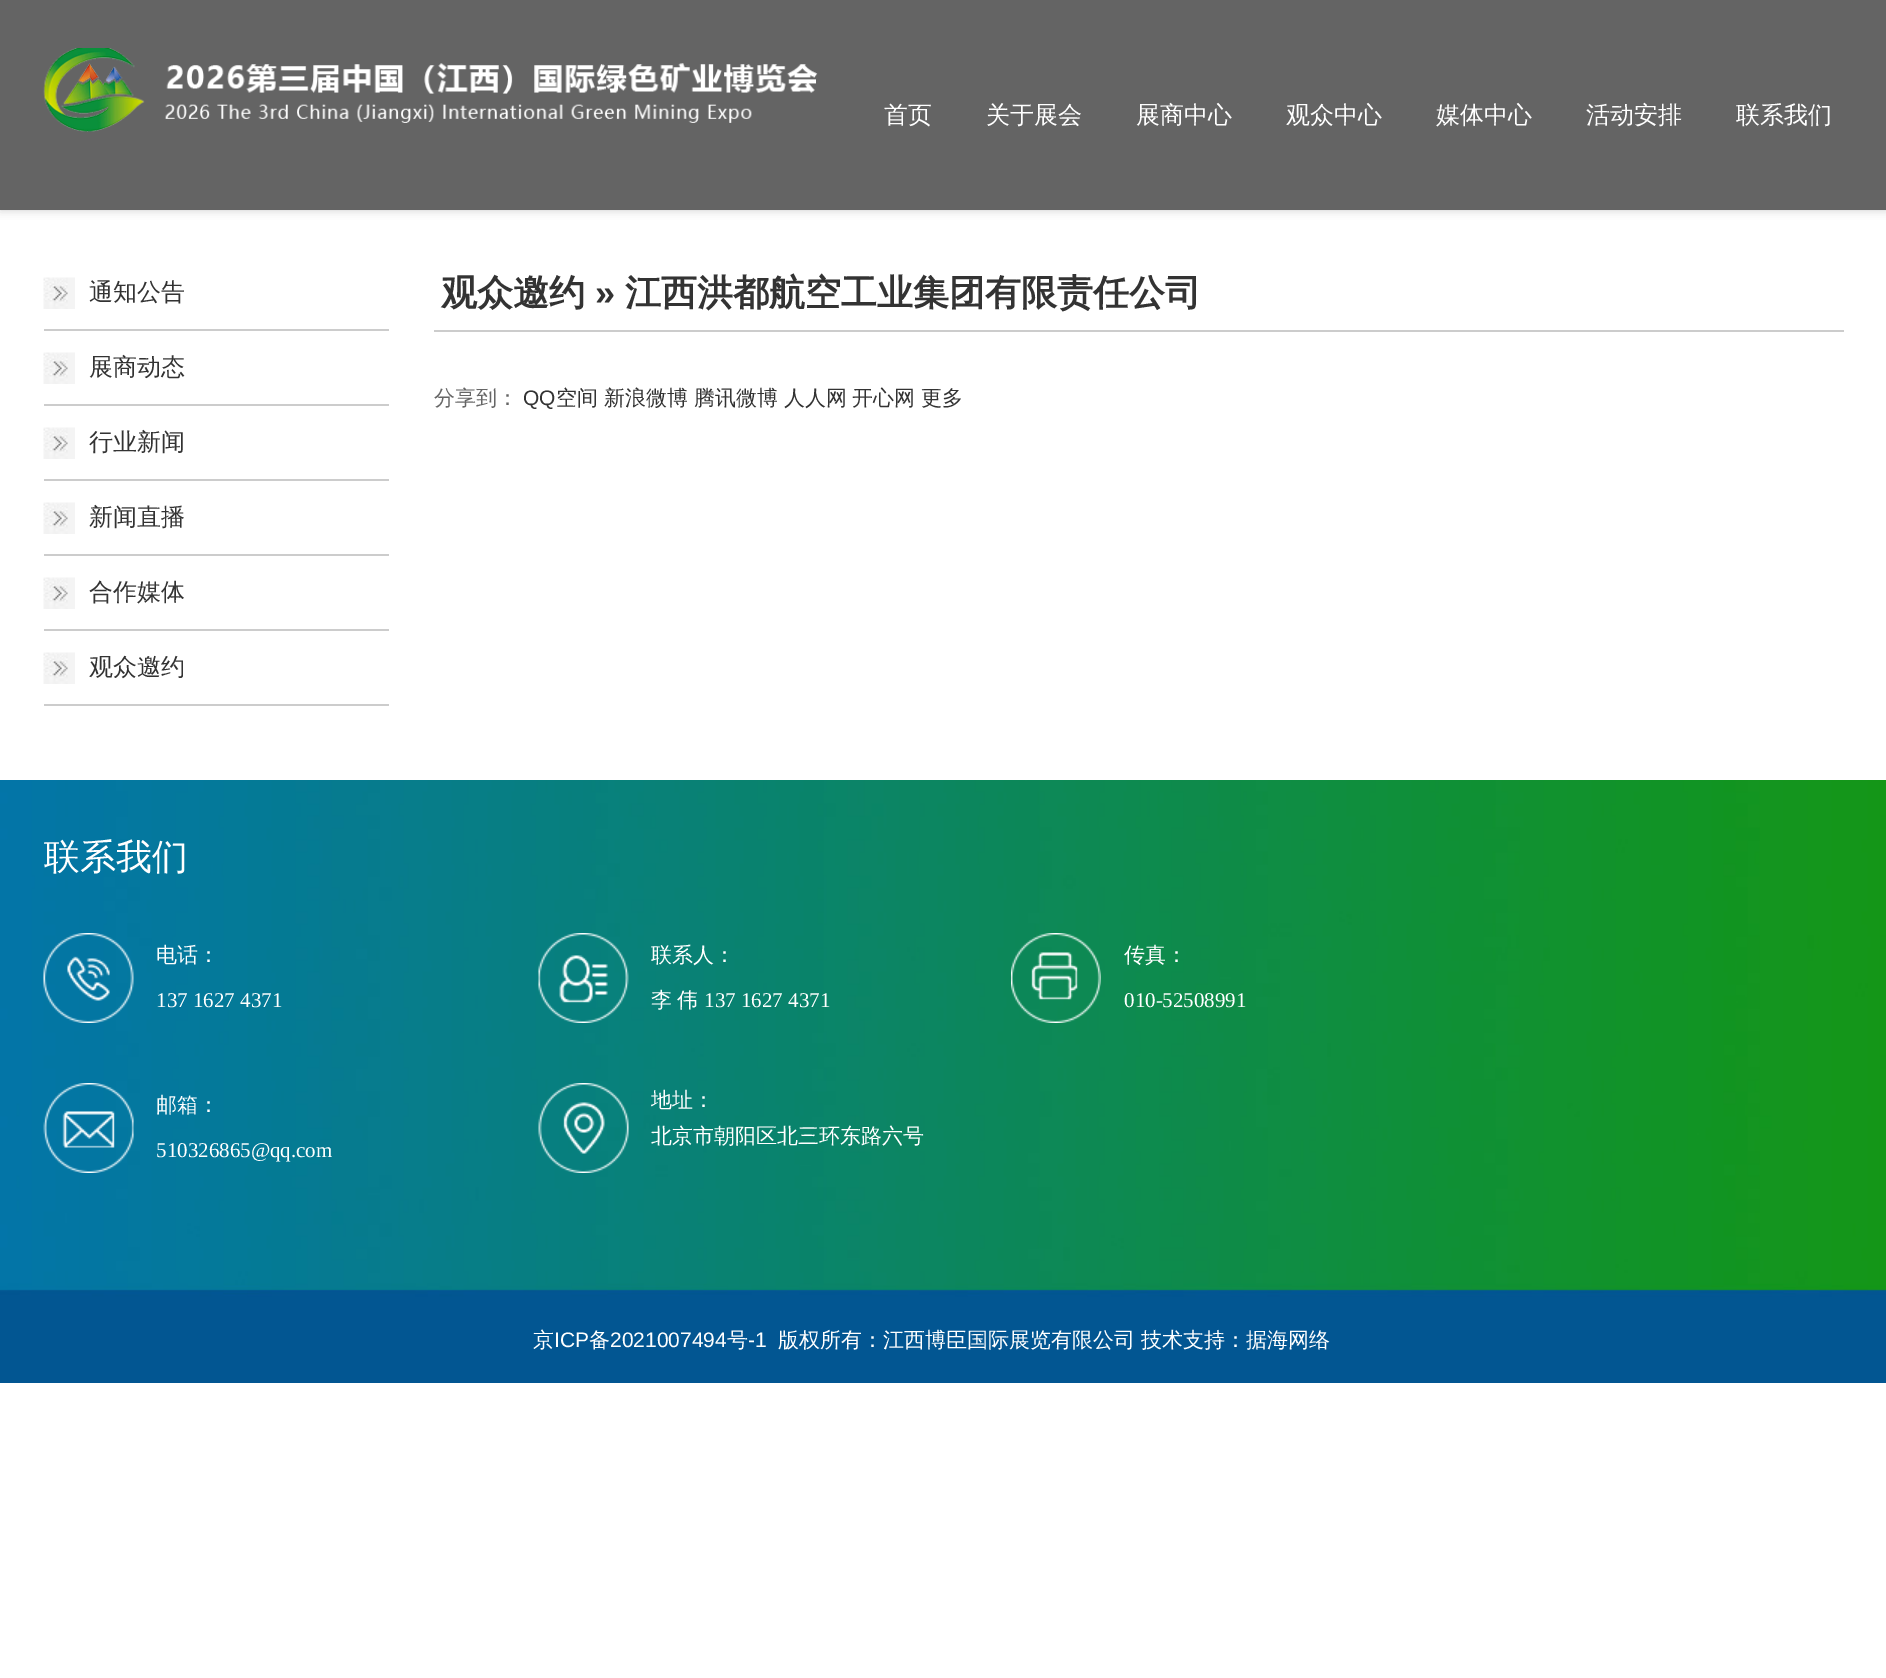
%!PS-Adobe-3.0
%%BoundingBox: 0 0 1886 1678
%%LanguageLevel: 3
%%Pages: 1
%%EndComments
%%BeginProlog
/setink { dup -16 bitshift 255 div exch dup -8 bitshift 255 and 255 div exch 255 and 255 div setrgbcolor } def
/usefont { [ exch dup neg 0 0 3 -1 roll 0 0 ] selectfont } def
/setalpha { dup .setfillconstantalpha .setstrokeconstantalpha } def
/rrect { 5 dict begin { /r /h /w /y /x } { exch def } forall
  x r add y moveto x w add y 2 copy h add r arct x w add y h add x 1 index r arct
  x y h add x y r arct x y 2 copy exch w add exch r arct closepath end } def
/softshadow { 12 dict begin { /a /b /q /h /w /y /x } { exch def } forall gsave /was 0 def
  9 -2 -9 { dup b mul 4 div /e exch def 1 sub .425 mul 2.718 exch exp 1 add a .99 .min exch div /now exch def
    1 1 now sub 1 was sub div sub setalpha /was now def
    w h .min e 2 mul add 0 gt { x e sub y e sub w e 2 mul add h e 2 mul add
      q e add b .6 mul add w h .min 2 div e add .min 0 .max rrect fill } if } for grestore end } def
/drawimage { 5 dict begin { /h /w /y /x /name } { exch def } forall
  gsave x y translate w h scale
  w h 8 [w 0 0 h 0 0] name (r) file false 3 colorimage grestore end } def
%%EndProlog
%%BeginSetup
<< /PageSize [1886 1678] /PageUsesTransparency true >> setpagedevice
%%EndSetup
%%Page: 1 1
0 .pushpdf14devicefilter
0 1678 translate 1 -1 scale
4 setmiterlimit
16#FFFFFF setink
0 0 1886 1678 rectfill
16#999999 setink
0 0 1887 210 0 4.5 0.5 softshadow
16#646464 setink
0 0 1886 210 rectfill
(img1.raw) 43 48 775 84 drawimage
/WenQuanYiZenHei-Medium 24 usefont
16#FFFFFF setink
[
    [(首页) 884 123]
    [(关于展会) 986 123]
    [(展商中心) 1136 123]
    [(观众中心) 1286 123]
    [(媒体中心) 1436 123]
    [(活动安排) 1586 123]
    [(联系我们) 1736 123]
] { aload pop moveto show } forall
(img2.raw) 43 277 32 32 drawimage
16#CCCCCC setink
44 329 345 2 rectfill
16#333333 setink
89 300 moveto (通知公告) show
(img2.raw) 43 352 32 32 drawimage
16#CCCCCC setink
44 404 345 2 rectfill
16#333333 setink
89 375 moveto (展商动态) show
(img2.raw) 43 427 32 32 drawimage
16#CCCCCC setink
44 479 345 2 rectfill
16#333333 setink
89 450 moveto (行业新闻) show
(img2.raw) 43 502 32 32 drawimage
16#CCCCCC setink
44 554 345 2 rectfill
16#333333 setink
89 525 moveto (新闻直播) show
(img2.raw) 43 577 32 32 drawimage
16#CCCCCC setink
44 629 345 2 rectfill
16#333333 setink
89 600 moveto (合作媒体) show
(img2.raw) 43 652 32 32 drawimage
16#CCCCCC setink
44 704 345 2 rectfill
16#333333 setink
89 675 moveto (观众邀约) show
16#CCCCCC setink
434 330 1410 2 rectfill
/WenQuanYiZenHei-Bold 36 usefont
16#333333 setink
441 305 moveto (观众邀约) show
/LiberationSans-Bold 36 usefont
595 305 moveto (») show
/WenQuanYiZenHei-Bold 36 usefont
625 305 moveto (江西洪都航空工业集团有限责任公司) show
/WenQuanYiZenHei-Medium 21 usefont
16#666666 setink
434 405 moveto (分享到：) show
/LiberationSans-Regular 21 usefont
16#333333 setink
523 405 moveto (QQ) show
/WenQuanYiZenHei-Medium 21 usefont
[
    [(空间) 556 405]
    [(新浪微博) 604 405]
    [(腾讯微博) 694 405]
    [(人人网) 784 405]
    [(开心网) 852 405]
    [(更多) 921 405]
] { aload pop moveto show } forall
(img3.raw) 0 780 1886 603 drawimage
/WenQuanYiZenHei-Medium 36 usefont
16#FFFFFF setink
44 869 moveto (联系我们) show
(img4.raw) 43 933 91 90 drawimage
/WenQuanYiZenHei-Medium 21 usefont
156 962 moveto (电话：) show
/LiberationSerif-Regular 21 usefont
156 1007 moveto (137 1627 4371) show
(img5.raw) 538 933 91 90 drawimage
/WenQuanYiZenHei-Medium 21 usefont
[
    [(联系人：) 651 962]
    [(李) 651 1007]
    [(伟) 677 1007]
] { aload pop moveto show } forall
/LiberationSerif-Regular 21 usefont
704 1007 moveto (137 1627 4371) show
(img6.raw) 1011 933 90 90 drawimage
/WenQuanYiZenHei-Medium 21 usefont
1124 962 moveto (传真：) show
/LiberationSerif-Regular 21 usefont
1124 1007 moveto (010-52508991) show
(img7.raw) 43 1083 91 90 drawimage
/WenQuanYiZenHei-Medium 21 usefont
156 1112 moveto (邮箱：) show
/LiberationSerif-Regular 21 usefont
156 1157 moveto (510326865@qq.com) show
(img8.raw) 538 1083 91 90 drawimage
/WenQuanYiZenHei-Medium 21 usefont
[
    [(地址：) 651 1107]
    [(北京市朝阳区北三环东路六号) 651 1143]
    [(京) 533 1347]
] { aload pop moveto show } forall
/LiberationSans-Regular 21 usefont
554 1347 moveto (ICP) show
/WenQuanYiZenHei-Medium 21 usefont
589 1347 moveto (备) show
/LiberationSans-Regular 21 usefont
610 1347 moveto (2021007494) show
/WenQuanYiZenHei-Medium 21 usefont
727 1347 moveto (号) show
/LiberationSans-Regular 21 usefont
748 1347 moveto (-1) show
/WenQuanYiZenHei-Medium 21 usefont
778 1347 moveto (版权所有：江西博臣国际展览有限公司) show
1141 1347 moveto (技术支持：据海网络) show
.poppdf14devicefilter showpage
%%EOF
